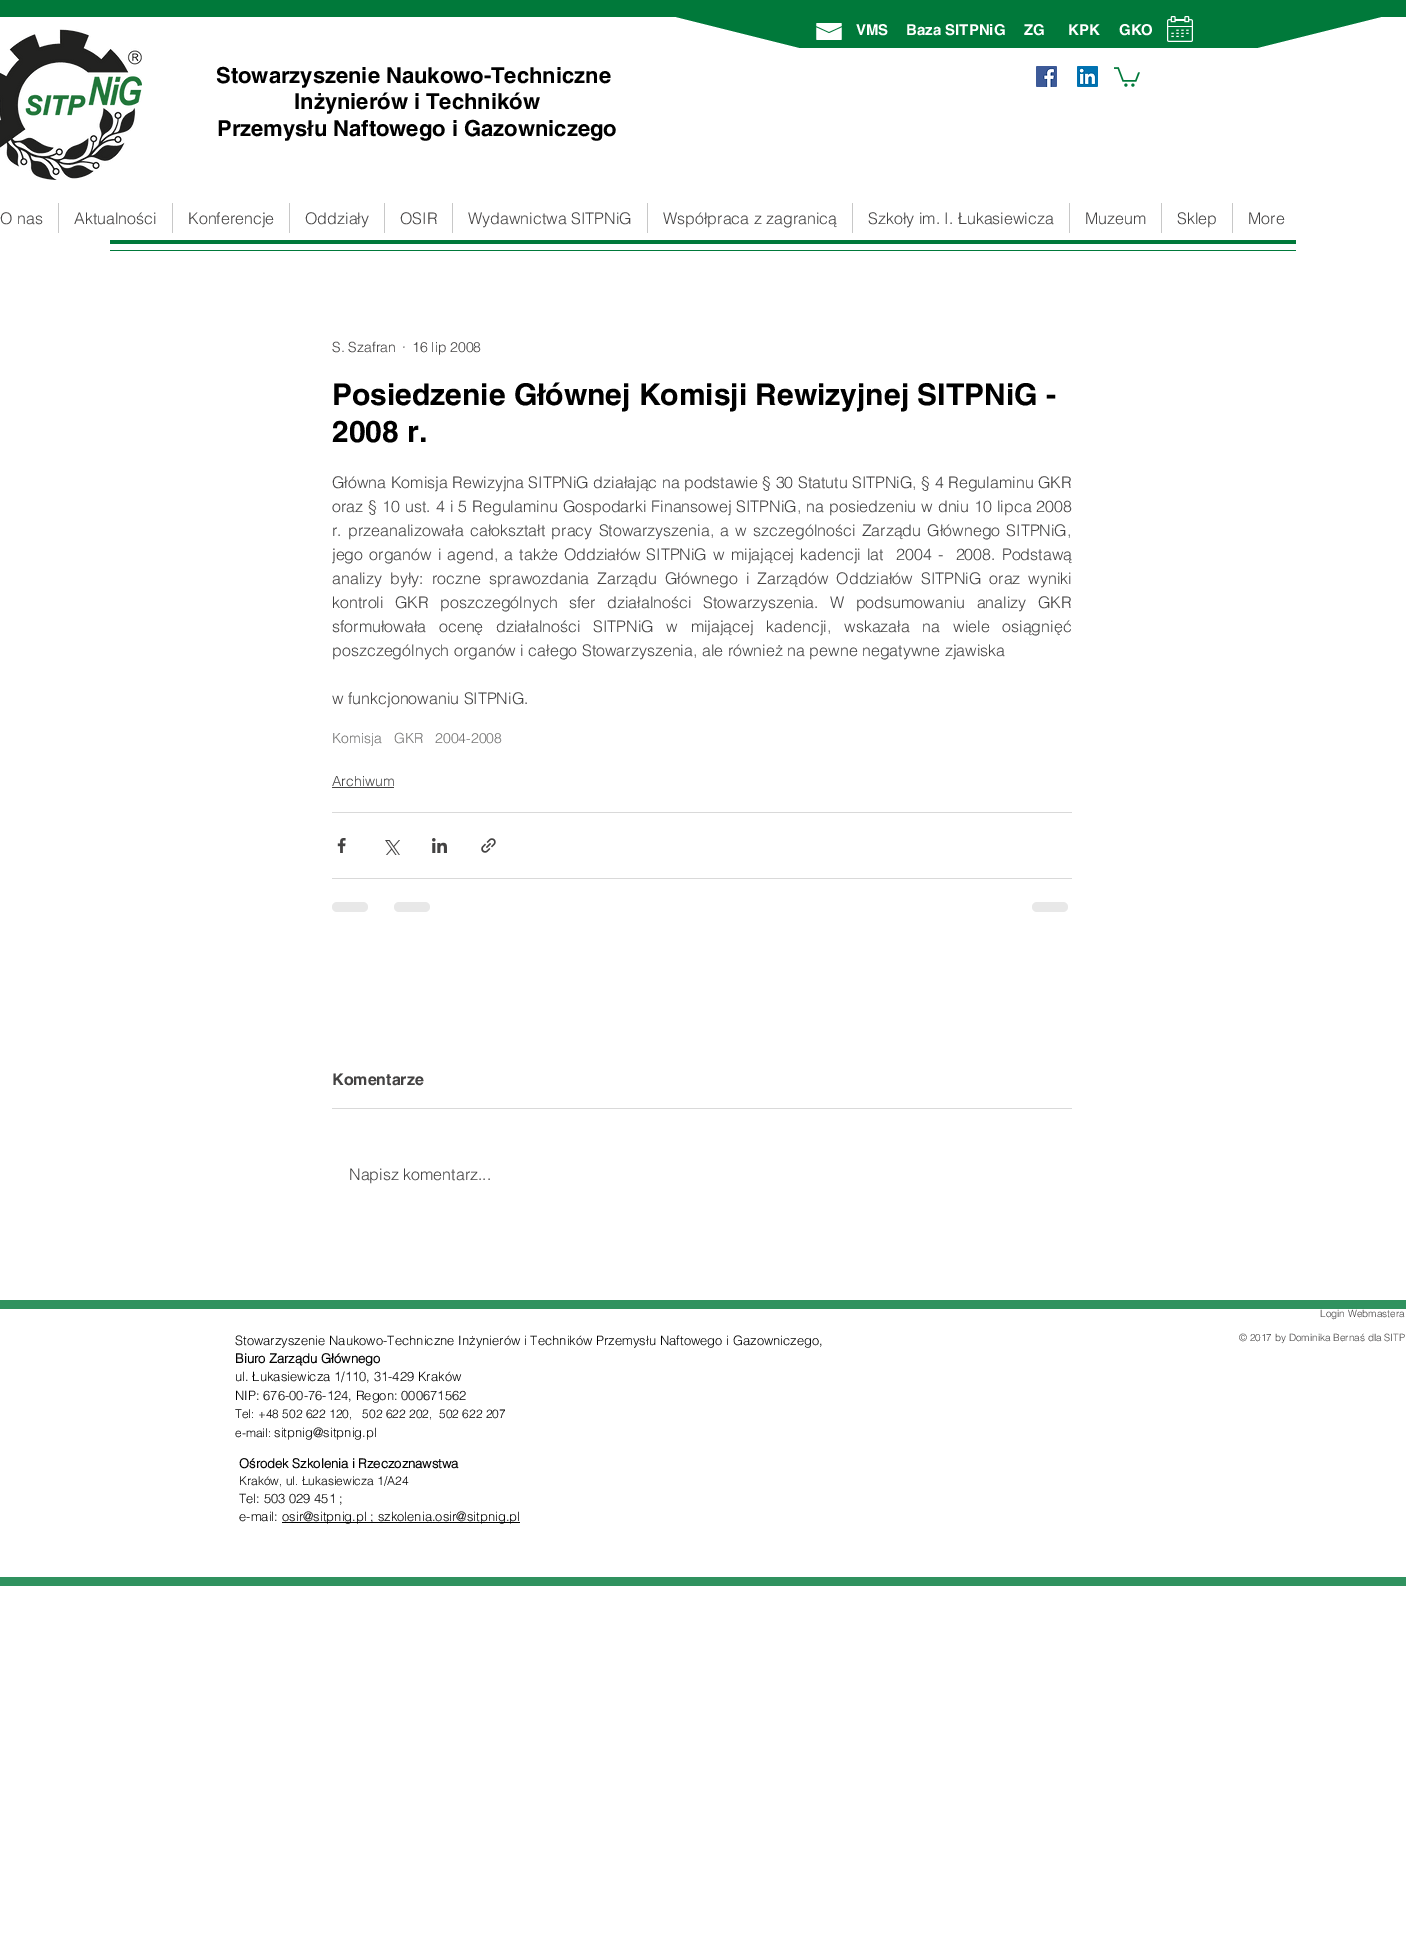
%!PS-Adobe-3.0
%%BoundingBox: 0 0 1406 1940
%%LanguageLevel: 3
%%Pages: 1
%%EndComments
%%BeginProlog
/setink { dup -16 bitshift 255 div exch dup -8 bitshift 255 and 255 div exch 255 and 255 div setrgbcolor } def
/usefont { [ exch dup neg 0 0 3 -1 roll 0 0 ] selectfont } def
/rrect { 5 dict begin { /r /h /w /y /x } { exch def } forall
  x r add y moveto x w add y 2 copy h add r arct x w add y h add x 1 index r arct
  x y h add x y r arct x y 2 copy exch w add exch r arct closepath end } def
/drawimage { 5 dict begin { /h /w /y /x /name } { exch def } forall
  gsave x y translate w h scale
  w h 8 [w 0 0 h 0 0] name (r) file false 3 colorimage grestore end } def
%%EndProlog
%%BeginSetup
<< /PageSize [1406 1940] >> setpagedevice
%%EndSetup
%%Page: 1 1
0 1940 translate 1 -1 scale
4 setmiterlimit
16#FFFFFF setink
0 0 1406 1940 rectfill
16#00793A setink
648 10 moveto 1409 10 lineto 1257 48 lineto 800 48 lineto closepath fill
0 0 1406 17 rectfill
(img1.raw) 0 29 142 151 drawimage
/helvetica-Bold 22 usefont
16#000000 setink
[
    [(Stowarzyszenie Naukowo-Techniczne) 216 83]
    [(Inżynierów i Techników) 294 109]
    [(Przemysłu Naftowego i Gazowniczego) 217 136]
] { aload pop moveto show } forall
(img2.raw) 816 23 26 17 drawimage
/helvetica-Bold 15 usefont
16#FFFFFF setink
[
    [(VMS) 856 35]
    [(Baza SITPNiG) 906 35]
    [(ZG) 1024 35]
    [(KPK) 1068 35]
    [(GKO) 1119 35]
] { aload pop moveto show } forall
(img3.raw) 1167 16 26 26 drawimage
(img4.raw) 1036 66 21 21 drawimage
(img5.raw) 1077 66 21 21 drawimage
(img6.raw) 1114 67 26 20 drawimage
/helvetica-Light 16 usefont
16#434242 setink
0 224 moveto (O nas) show
16#C8C8C8 setink
58 203 1 30 rectfill
16#434242 setink
74 224 moveto (Aktualności) show
16#C8C8C8 setink
172 203 1 30 rectfill
16#434242 setink
188 224 moveto (Konferencje) show
16#C8C8C8 setink
289 203 1 30 rectfill
16#434242 setink
305 224 moveto (Oddziały) show
16#C8C8C8 setink
384 203 1 30 rectfill
16#434242 setink
400 224 moveto (OSIR) show
16#C8C8C8 setink
452 203 1 30 rectfill
16#434242 setink
468 224 moveto (Wydawnictwa SITPNiG) show
16#C8C8C8 setink
647 203 1 30 rectfill
16#434242 setink
663 224 moveto (Współpraca z zagranicą) show
16#C8C8C8 setink
852 203 1 30 rectfill
16#434242 setink
868 224 moveto (Szkoły im. I. Łukasiewicza) show
16#C8C8C8 setink
1069 203 1 30 rectfill
16#434242 setink
1085 224 moveto (Muzeum) show
16#C8C8C8 setink
1161 203 1 30 rectfill
16#434242 setink
1177 224 moveto (Sklep) show
16#C8C8C8 setink
1232 203 1 30 rectfill
16#434242 setink
1248 224 moveto (More) show
16#00793A setink
110 240 1186 4 rectfill
110 250 1186 1 rectfill
/helvetica-Light 14 usefont
16#434242 setink
[
    [(S. Szafran) 332 352]
    [(·) 402 352]
    [(16 lip 2008) 412 352]
] { aload pop moveto show } forall
/helvetica-Bold 30 usefont
16#000000 setink
332 405 moveto (Posiedzenie Głównej Komisji Rewizyjnej SITPNiG -) show
332 442 moveto (2008 r.) show
/helvetica-Light 16 usefont
16#434242 setink
332 488 moveto (Główna Komisja Rewizyjna SITPNiG działając na podstawie § 30 Statutu SITPNiG, § 4 Regulaminu GKR) show
332 512 moveto 0.6 0 32 (oraz § 10 ust. 4 i 5 Regulaminu Gospodarki Finansowej SITPNiG, na posiedzeniu w dniu 10 lipca 2008) widthshow
332 536 moveto 1.75 0 32 (r. przeanalizowała całokształt pracy Stowarzyszenia, a w szczególności Zarządu Głównego SITPNiG,) widthshow
332 560 moveto 1.75 0 32 (jego organów i agend, a także Oddziałów SITPNiG w mijającej kadencji lat  2004 -  2008. Podstawą) widthshow
332 584 moveto 3.6 0 32 (analizy były: roczne sprawozdania Zarządu Głównego i Zarządów Oddziałów SITPNiG oraz wyniki) widthshow
332 608 moveto 7 0 32 (kontroli GKR poszczególnych sfer działalności Stowarzyszenia. W podsumowaniu analizy GKR) widthshow
332 632 moveto 8.25 0 32 (sformułowała ocenę działalności SITPNiG w mijającej kadencji, wskazała na wiele osiągnięć) widthshow
332 656 moveto (poszczególnych organów i całego Stowarzyszenia, ale również na pewne negatywne zjawiska) show
332 704 moveto (w funkcjonowaniu SITPNiG.) show
/helvetica-Light 14 usefont
16#727271 setink
[
    [(Komisja) 332 743]
    [(GKR) 394 743]
    [(2004-2008) 435 743]
] { aload pop moveto show } forall
16#434242 setink
332 786 moveto (Archiwum) show
332 787 62 1 rectfill
16#D9D9D9 setink
332 812 740 1 rectfill
(img7.raw) 337 838 9 15 drawimage
(img8.raw) 385 840 15 15 drawimage
(img9.raw) 432 838 15 15 drawimage
(img10.raw) 481 838 15 15 drawimage
332 878 740 1 rectfill
16#E8E8E8 setink
332 902 36 10 5 rrect fill
394 902 36 10 5 rrect fill
1032 902 36 10 5 rrect fill
/helvetica-Bold 16 usefont
16#434242 setink
332 1085 moveto (Komentarze) show
16#D9D9D9 setink
332 1108 740 1 rectfill
/helvetica-Light 16 usefont
16#434242 setink
349 1180 moveto (Napisz komentarz...) show
16#30925F setink
0 1300 1406 9 rectfill
0 1577 1406 9 rectfill
/helvetica-Light 10 usefont
16#434242 setink
1320 1317 moveto (Login Webmastera) show
/helvetica-Light 13 usefont
16#000000 setink
235 1345 moveto (Stowarzyszenie Naukowo-Techniczne Inżynierów i Techników Przemysłu Naftowego i Gazowniczego,) show
/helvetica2-Bold 13 usefont
235 1363 moveto (Biuro Zarządu Głównego) show
/helvetica-Light 13 usefont
235 1381 moveto (ul. Łukasiewicza 1/110, 31-429 Kraków) show
235 1400 moveto (NIP: 676-00-76-124, Regon: 000671562) show
/helvetica-Light 12 usefont
235 1418 moveto (Tel: +48 502 622 120,   502 622 202,  502 622 207) show
235 1437 moveto (e-mail:) show
/helvetica-Light 13 usefont
274 1437 moveto (sitpnig@sitpnig.pl) show
/helvetica-Light 10 usefont
16#434242 setink
1239 1341 moveto (© 2017 by Dominika Bernaś dla SITP) show
/helvetica2-Bold 13 usefont
16#000000 setink
239 1468 moveto (Ośrodek Szkolenia i Rzeczoznawstwa) show
/helvetica-Light 12 usefont
239 1485 moveto (Kraków, ul. Łukasiewicza 1/A24) show
/helvetica-Light 13 usefont
239 1503 moveto (Tel: 503 029 451 ;) show
239 1521 moveto (e-mail:) show
282 1522 238 1 rectfill
282 1521 moveto (osir@sitpnig.pl ; szkolenia.osir@sitpnig.pl) show
showpage
%%EOF
